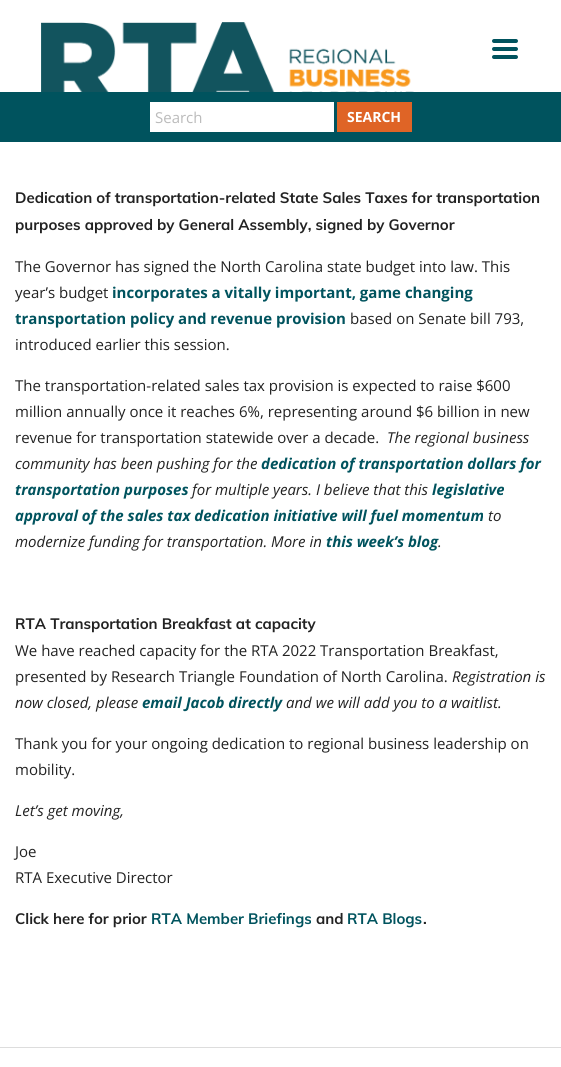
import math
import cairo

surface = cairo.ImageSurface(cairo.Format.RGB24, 561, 1067)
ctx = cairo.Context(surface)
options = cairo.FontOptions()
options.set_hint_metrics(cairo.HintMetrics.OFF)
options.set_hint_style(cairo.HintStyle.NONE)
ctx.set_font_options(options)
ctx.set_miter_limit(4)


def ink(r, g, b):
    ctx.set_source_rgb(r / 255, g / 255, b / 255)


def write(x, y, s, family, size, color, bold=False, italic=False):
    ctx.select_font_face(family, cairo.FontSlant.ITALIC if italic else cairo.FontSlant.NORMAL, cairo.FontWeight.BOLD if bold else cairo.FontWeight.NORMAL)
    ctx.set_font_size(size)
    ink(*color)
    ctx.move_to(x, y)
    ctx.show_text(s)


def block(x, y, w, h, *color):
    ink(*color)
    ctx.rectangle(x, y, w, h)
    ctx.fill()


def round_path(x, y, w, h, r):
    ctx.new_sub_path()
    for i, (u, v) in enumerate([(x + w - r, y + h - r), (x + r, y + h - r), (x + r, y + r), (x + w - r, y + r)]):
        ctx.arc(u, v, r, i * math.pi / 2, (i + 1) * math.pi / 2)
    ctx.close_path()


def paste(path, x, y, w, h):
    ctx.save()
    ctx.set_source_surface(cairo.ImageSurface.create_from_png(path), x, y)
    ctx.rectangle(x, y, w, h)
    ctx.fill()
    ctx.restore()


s1 = dict(family="Open Sans", size=15, color=(187, 187, 187))
s2 = dict(family="Open Sans", size=14, color=(255, 255, 255), bold=True)
s3 = dict(family="Muli", size=15, color=(34, 34, 34), bold=True)
s4 = dict(family="Open Sans", size=15, color=(34, 34, 34))
s5 = dict(family="Open Sans", size=15, color=(0, 83, 94), bold=True)
s6 = dict(family="Open Sans", size=15, color=(34, 34, 34), italic=True)
s7 = dict(family="Open Sans", size=15, color=(0, 83, 94), bold=True, italic=True)
s8 = dict(family="Muli", size=15, color=(0, 83, 94), bold=True)

ink(255, 255, 255)
ctx.paint()
paste("pic1.png", 41, 22, 373, 70)
ink(0, 83, 94)
round_path(492, 47, 26, 4, 2)
ctx.fill()
round_path(492, 39, 26, 4, 2)
ctx.fill()
round_path(492, 55, 26, 4, 2)
ctx.fill()
block(0, 92, 561, 50, 0, 83, 94)
block(150, 102, 184, 30, 255, 255, 255)
write(155, 123, "Search", **s1)
block(337, 102, 75, 30, 223, 100, 38)
write(347, 122, "SEARCH", **s2)
write(15, 203, "Dedication of transportation-related State Sales Taxes for transportation", **s3)
write(15, 230, "purposes approved by General Assembly, signed by Governor", **s3)
write(15, 272, "The Governor has signed the North Carolina state budget into law. This", **s4)
write(15, 298, "year’s budget", **s4)
write(112, 298, "incorporates a vitally important, game changing", **s5)
write(15, 324, "transportation policy and revenue provision", **s5)
write(350, 324, "based on Senate bill 793,", **s4)
write(15, 350, "introduced earlier this session.", **s4)
write(15, 391, "The transportation-related sales tax provision is expected to raise $600", **s4)
write(15, 417, "million annually once it reaches 6%, representing around $6 billion in new", **s4)
write(15, 443, "revenue for transportation statewide over a decade.", **s4)
write(387, 443, "The regional business", **s6)
write(15, 469, "community has been pushing for the", **s6)
write(261, 469, "dedication of transportation dollars for", **s7)
write(15, 495, "transportation purposes", **s7)
write(192, 495, "for multiple years. I believe that this", **s6)
write(432, 495, "legislative", **s7)
write(15, 521, "approval of the sales tax dedication initiative will fuel momentum", **s7)
write(488, 521, "to", **s6)
write(15, 547, "modernize funding for transportation. More in", **s6)
write(326, 547, "this week’s blog", **s7)
write(438, 547, ".", **s6)
write(15, 629, "RTA Transportation Breakfast at capacity", **s3)
write(15, 656, "We have reached capacity for the RTA 2022 Transportation Breakfast,", **s4)
write(15, 682, "presented by Research Triangle Foundation of North Carolina.", **s4)
write(452, 682, "Registration is", **s6)
write(15, 708, "now closed, please", **s6)
write(142, 708, "email Jacob directly", **s7)
write(286, 708, "and we will add you to a waitlist.", **s6)
write(15, 749, "Thank you for your ongoing dedication to regional business leadership on", **s4)
write(15, 775, "mobility.", **s4)
write(15, 816, "Let’s get moving,", **s6)
write(15, 857, "Joe", **s4)
write(15, 883, "RTA Executive Director", **s4)
write(15, 924, "Click here for prior", **s3)
write(151, 924, "RTA Member Briefings", **s8)
write(316, 924, "and", **s3)
write(347, 924, "RTA Blogs", **s8)
write(423, 924, ".", **s3)
block(0, 1047, 561, 1, 221, 221, 221)
surface.write_to_png("screenshot.png")
